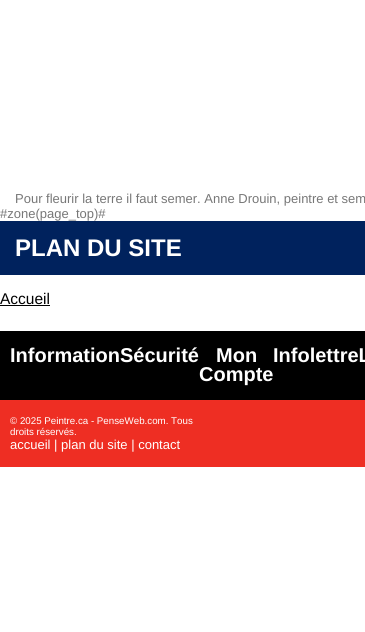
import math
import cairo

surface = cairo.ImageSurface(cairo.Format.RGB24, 365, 632)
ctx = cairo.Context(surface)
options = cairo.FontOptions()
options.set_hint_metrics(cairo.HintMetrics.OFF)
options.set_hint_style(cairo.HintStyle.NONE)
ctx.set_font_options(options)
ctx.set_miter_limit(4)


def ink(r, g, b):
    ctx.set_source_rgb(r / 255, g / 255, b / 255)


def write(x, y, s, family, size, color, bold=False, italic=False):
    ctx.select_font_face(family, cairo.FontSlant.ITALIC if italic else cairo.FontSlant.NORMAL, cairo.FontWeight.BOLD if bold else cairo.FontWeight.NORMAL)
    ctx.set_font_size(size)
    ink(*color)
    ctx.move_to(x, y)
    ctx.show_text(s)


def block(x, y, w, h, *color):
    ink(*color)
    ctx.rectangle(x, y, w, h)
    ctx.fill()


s1 = dict(family="Liberation Sans", size=13, color=(119, 119, 119))
s2 = dict(family="Liberation Sans", size=24, color=(255, 255, 255), bold=True)
s3 = dict(family="Liberation Sans", size=15.5, color=(0, 0, 0))
s4 = dict(family="Liberation Sans", size=20, color=(255, 255, 255), bold=True)
s5 = dict(family="Liberation Sans", size=9.75, color=(255, 255, 255))
s6 = dict(family="Liberation Sans", size=13, color=(255, 255, 255))

ink(255, 255, 255)
ctx.paint()
write(15, 203, "Pour fleurir la terre il faut semer. Anne Drouin, peintre et sem", **s1)
write(0, 218, "#zone(page_top)#", **s1)
block(0, 221, 365, 54, 0, 34, 93)
write(15, 256, "PLAN DU SITE", **s2)
write(0, 304, "Accueil", **s3)
block(0, 305, 50, 1, 0, 0, 0)
block(0, 331, 365, 69, 0, 0, 0)
write(10, 362, "InformationSécurité", **s4)
write(216, 362, "Mon", **s4)
write(199, 381, "Compte", **s4)
write(273, 362, "InfolettreL", **s4)
block(0, 400, 365, 67, 238, 46, 35)
write(10, 424, "© 2025 Peintre.ca - PenseWeb.com. Tous", **s5)
write(10, 435, "droits réservés.", **s5)
write(10, 449, "accueil | plan du site | contact", **s6)
surface.write_to_png("screenshot.png")
